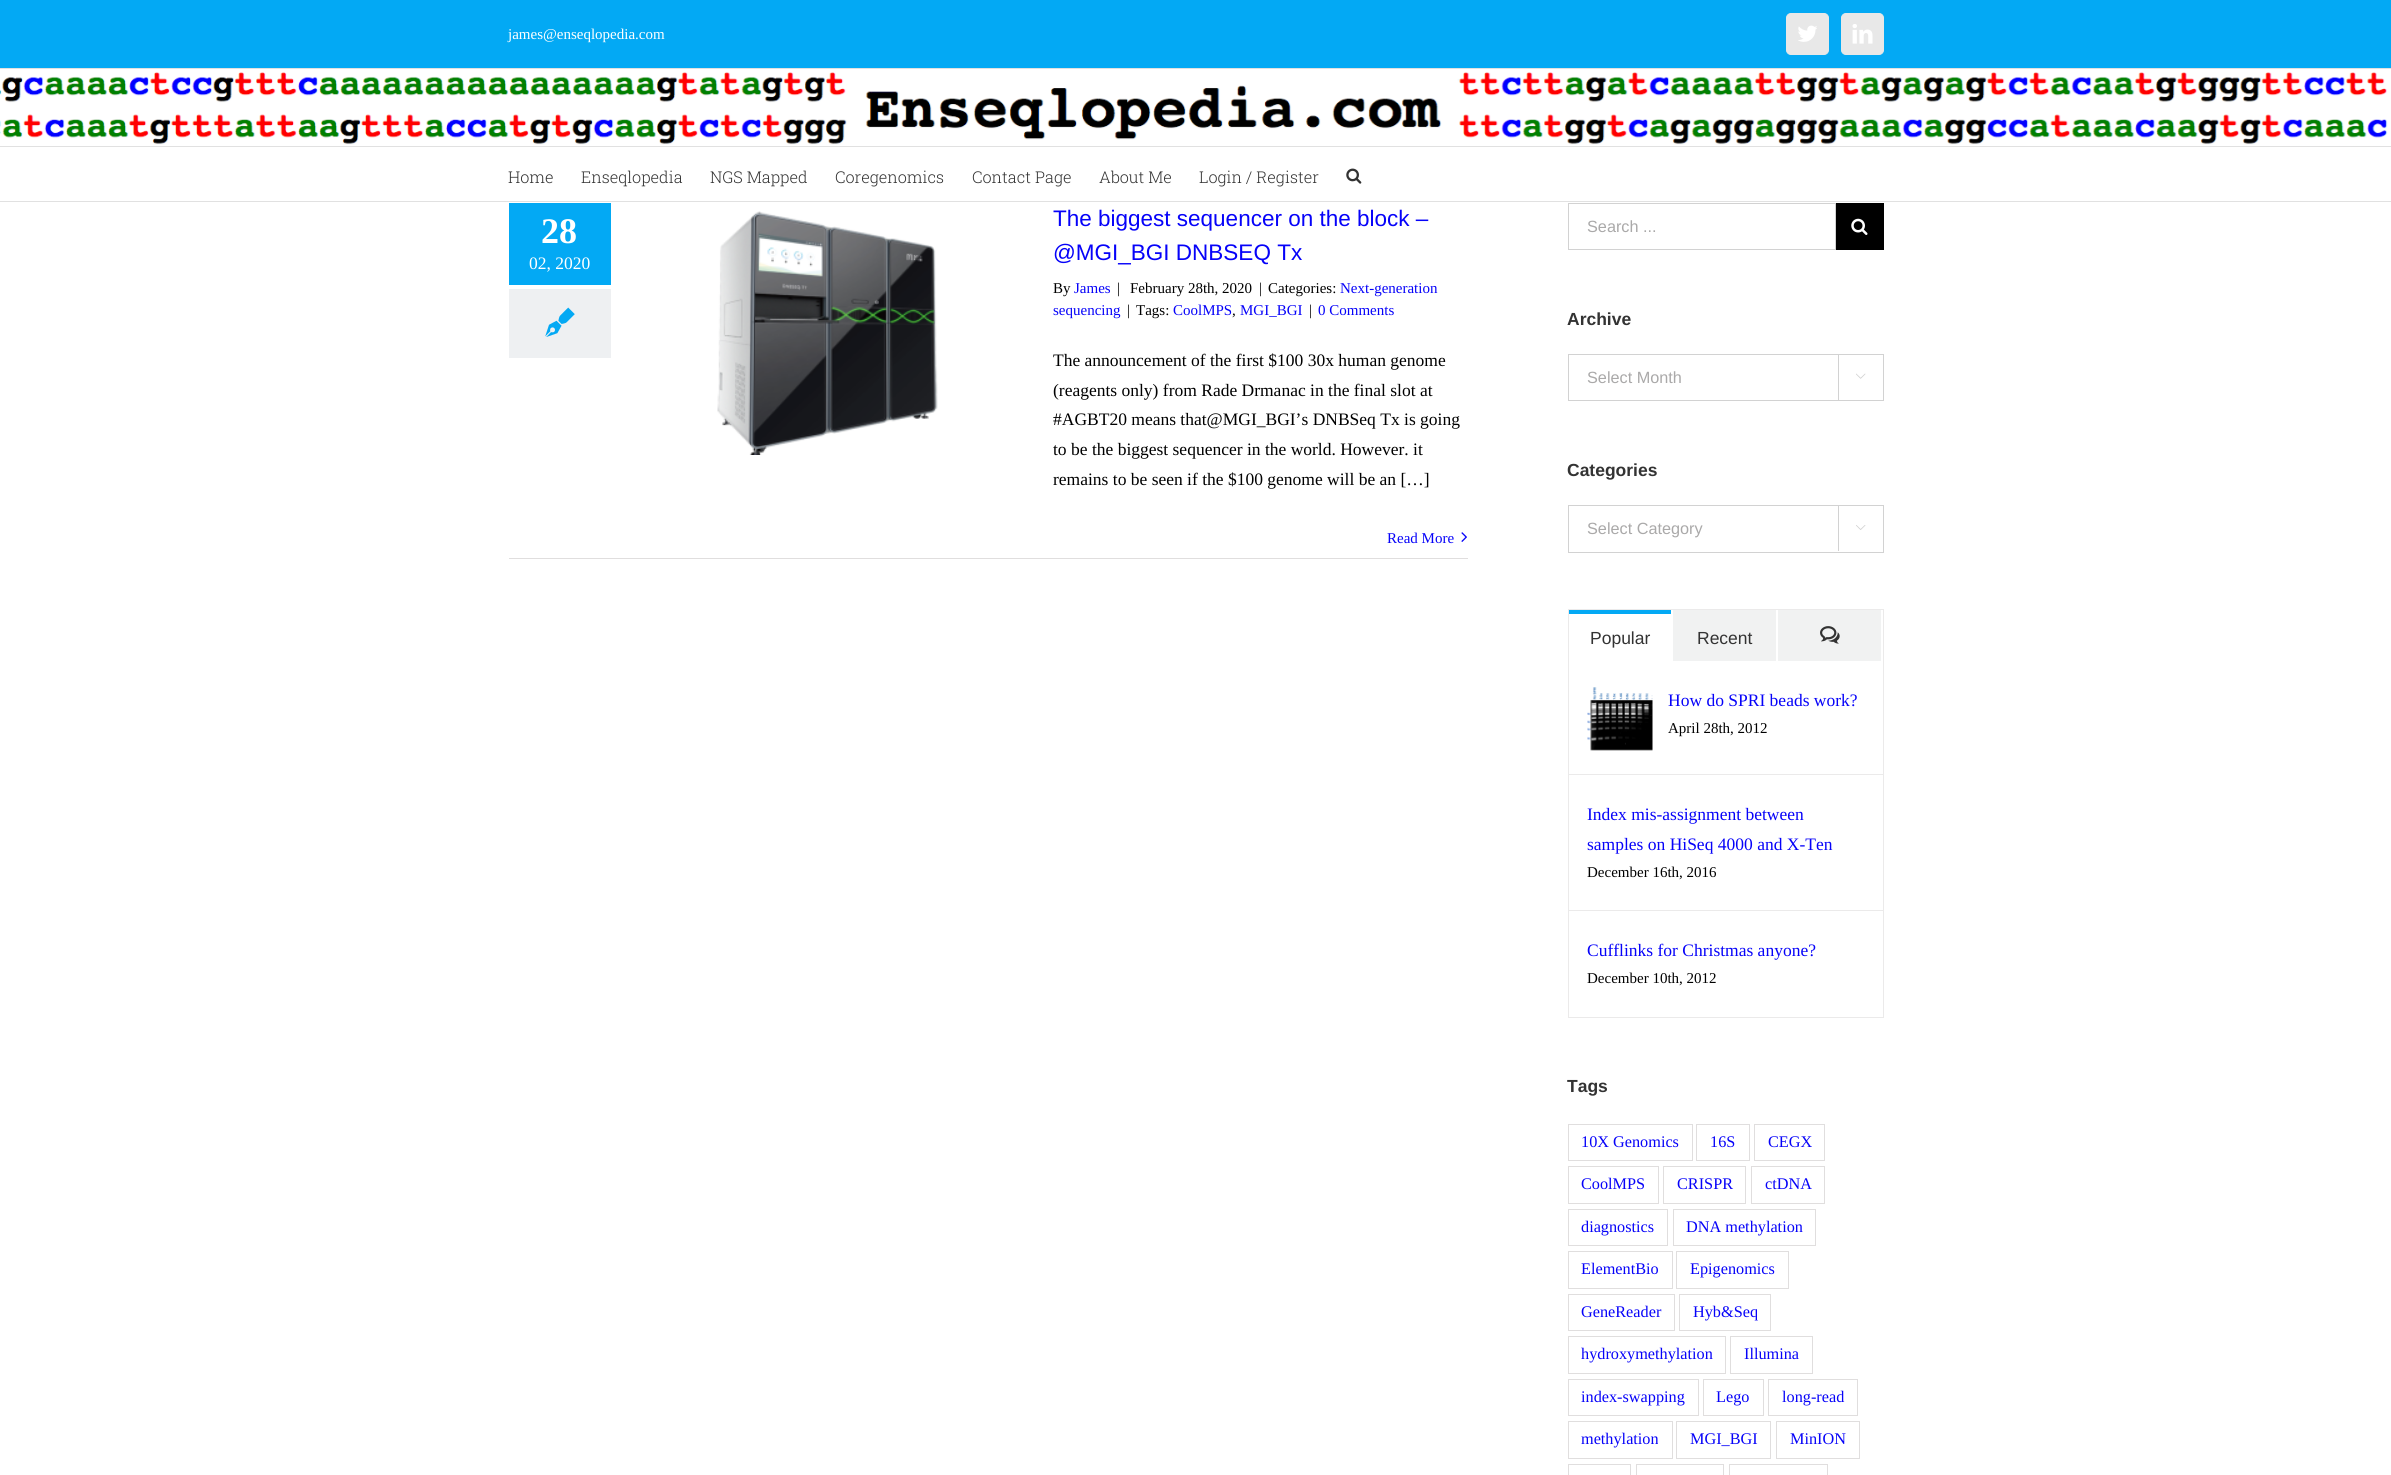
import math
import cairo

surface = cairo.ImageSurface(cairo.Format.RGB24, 2391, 1475)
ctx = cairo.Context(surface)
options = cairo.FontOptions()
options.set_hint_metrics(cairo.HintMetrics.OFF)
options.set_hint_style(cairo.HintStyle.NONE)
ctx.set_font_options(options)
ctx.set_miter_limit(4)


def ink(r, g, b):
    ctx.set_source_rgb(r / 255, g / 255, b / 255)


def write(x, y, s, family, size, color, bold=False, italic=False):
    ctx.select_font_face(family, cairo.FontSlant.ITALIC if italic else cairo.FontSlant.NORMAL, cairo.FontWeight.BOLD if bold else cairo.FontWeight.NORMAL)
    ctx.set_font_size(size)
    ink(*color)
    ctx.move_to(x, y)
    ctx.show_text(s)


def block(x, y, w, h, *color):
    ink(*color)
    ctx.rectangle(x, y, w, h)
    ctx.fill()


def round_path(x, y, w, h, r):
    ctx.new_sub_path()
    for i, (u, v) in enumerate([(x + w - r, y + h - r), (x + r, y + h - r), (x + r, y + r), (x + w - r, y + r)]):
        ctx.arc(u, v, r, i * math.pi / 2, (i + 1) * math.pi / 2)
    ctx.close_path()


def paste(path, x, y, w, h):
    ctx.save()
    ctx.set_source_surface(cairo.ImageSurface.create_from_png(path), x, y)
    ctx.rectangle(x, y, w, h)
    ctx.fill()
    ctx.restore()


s1 = dict(family="Liberation Serif", size=15, color=(255, 255, 255))
s2 = dict(family="Roboto Slab Light", size=16.25, color=(51, 51, 51))
s3 = dict(family="Liberation Serif", size=36, color=(255, 255, 255), bold=True)
s4 = dict(family="Liberation Serif", size=17.5, color=(255, 255, 255))
s5 = dict(family="Liberation Sans", size=22.5, color=(6, 2, 249))
s6 = dict(family="Liberation Serif", size=15, color=(0, 0, 0))
s7 = dict(family="Liberation Serif", size=15, color=(6, 2, 249))
s8 = dict(family="Liberation Serif", size=17.5, color=(0, 0, 0))
s9 = dict(family="Liberation Sans", size=16.25, color=(170, 169, 169))
s10 = dict(family="Liberation Sans", size=17.5, color=(51, 51, 51), bold=True)
s11 = dict(family="Liberation Sans", size=17.5, color=(51, 51, 51))
s12 = dict(family="Liberation Serif", size=17.5, color=(6, 2, 249))
s13 = dict(family="Liberation Serif", size=16.25, color=(6, 2, 249))

ink(255, 255, 255)
ctx.paint()
block(0, 0, 2391, 68, 3, 169, 244)
block(0, 68, 2391, 1, 225, 225, 225)
write(508, 39, "james@enseqlopedia.com", **s1)
ink(232, 232, 232)
round_path(1786.5, 13.5, 42, 41, 4.5)
ctx.fill_preserve()
ctx.set_line_width(1)
ctx.stroke()
paste("pic1.png", 1798, 25, 19, 17)
round_path(1841.5, 13.5, 42, 41, 4.5)
ctx.fill_preserve()
ctx.stroke()
paste("pic2.png", 1852, 24, 21, 20)
paste("pic3.png", 0, 72, 2388, 73)
block(0, 146, 2391, 1, 225, 225, 225)
block(0, 201, 2391, 1, 225, 225, 225)
write(508, 183, "Home", **s2)
write(581, 183, "Enseqlopedia", **s2)
write(710, 183, "NGS Mapped", **s2)
write(835, 183, "Coregenomics", **s2)
write(972, 183, "Contact Page", **s2)
write(1099, 183, "About Me", **s2)
write(1199, 183, "Login / Register", **s2)
paste("pic4.png", 1346, 168, 16, 16)
block(509, 203, 102, 82, 3, 169, 244)
write(541, 243, "28", **s3)
write(529, 269, "02, 2020", **s4)
block(509, 289, 102, 69, 238, 240, 242)
paste("pic5.png", 545, 307, 30, 30)
paste("pic6.png", 717, 211, 221, 244)
write(1053, 226, "The biggest sequencer on the block –", **s5)
write(1053, 260, "@MGI_BGI DNBSEQ Tx", **s5)
write(1053, 293, "By", **s6)
write(1074, 293, "James", **s7)
write(1117, 293, "|", **s6)
write(1130, 293, "February 28th, 2020", **s6)
write(1259, 293, "|", **s6)
write(1268, 293, "Categories:", **s6)
write(1340, 293, "Next-generation", **s7)
write(1053, 315, "sequencing", **s7)
write(1127, 315, "|", **s6)
write(1136, 315, "Tags:", **s6)
write(1173, 315, "CoolMPS", **s7)
write(1232, 315, ",", **s6)
write(1240, 315, "MGI_BGI", **s7)
write(1309, 315, "|", **s6)
write(1318, 315, "0 Comments", **s7)
write(1053, 366, "The announcement of the first $100 30x human genome", **s8)
write(1053, 396, "(reagents only) from Rade Drmanac in the final slot at", **s8)
write(1053, 425, "#AGBT20 means that@MGI_BGI’s DNBSeq Tx is going", **s8)
write(1053, 455, "to be the biggest sequencer in the world. However. it", **s8)
write(1053, 485, "remains to be seen if the $100 genome will be an […]", **s8)
block(509, 558, 959, 1, 224, 222, 222)
write(1387, 543, "Read More", **s7)
paste("pic7.png", 1461, 532, 6, 10)
ctx.rectangle(1568.5, 203.5, 267, 46)
ink(210, 210, 210)
ctx.stroke()
write(1587, 232, "Search ...", **s9)
block(1836, 203, 48, 47, 0, 0, 0)
paste("pic8.png", 1851, 218, 17, 17)
write(1567, 325, "Archive", **s10)
ctx.rectangle(1568.5, 354.5, 315, 46)
ink(210, 210, 210)
ctx.stroke()
write(1587, 383, "Select Month", **s9)
block(1838, 355, 1, 45, 210, 210, 210)
paste("pic9.png", 1856, 373, 10, 6)
write(1567, 476, "Categories", **s10)
ctx.rectangle(1568.5, 505.5, 315, 47)
ink(210, 210, 210)
ctx.stroke()
write(1587, 534, "Select Category", **s9)
block(1838, 506, 1, 45, 210, 210, 210)
paste("pic10.png", 1856, 525, 10, 5)
ctx.rectangle(1568.5, 609.5, 315, 408)
ink(235, 234, 234)
ctx.stroke()
block(1569, 610, 102, 4, 3, 169, 244)
write(1590, 644, "Popular", **s11)
block(1673, 610, 103, 51, 241, 242, 242)
write(1697, 644, "Recent", **s11)
block(1778, 610, 103, 51, 241, 242, 242)
paste("pic11.png", 1820, 626, 20, 18)
block(1569, 774, 314, 1, 235, 234, 234)
paste("pic12.png", 1587, 687, 66, 64)
write(1668, 706, "How do SPRI beads work?", **s12)
write(1668, 733, "April 28th, 2012", **s6)
block(1569, 910, 314, 1, 235, 234, 234)
write(1587, 820, "Index mis-assignment between", **s12)
write(1587, 850, "samples on HiSeq 4000 and X-Ten", **s12)
write(1587, 877, "December 16th, 2016", **s6)
write(1587, 956, "Cufflinks for Christmas anyone?", **s12)
write(1587, 983, "December 10th, 2012", **s6)
write(1567, 1092, "Tags", **s10)
ctx.rectangle(1568.5, 1124.5, 124, 36)
ink(224, 222, 222)
ctx.stroke()
write(1581, 1147, "10X Genomics", **s13)
ctx.rectangle(1696.5, 1124.5, 53, 36)
ink(224, 222, 222)
ctx.stroke()
write(1710, 1147, "16S", **s13)
ctx.rectangle(1754.5, 1124.5, 70, 36)
ink(224, 222, 222)
ctx.stroke()
write(1768, 1147, "CEGX", **s13)
ctx.rectangle(1568.5, 1166.5, 90, 37)
ink(224, 222, 222)
ctx.stroke()
write(1581, 1189, "CoolMPS", **s13)
ctx.rectangle(1663.5, 1166.5, 82, 37)
ink(224, 222, 222)
ctx.stroke()
write(1677, 1189, "CRISPR", **s13)
ctx.rectangle(1751.5, 1166.5, 73, 37)
ink(224, 222, 222)
ctx.stroke()
write(1765, 1189, "ctDNA", **s13)
ctx.rectangle(1568.5, 1209.5, 99, 36)
ink(224, 222, 222)
ctx.stroke()
write(1581, 1232, "diagnostics", **s13)
ctx.rectangle(1673.5, 1209.5, 142, 36)
ink(224, 222, 222)
ctx.stroke()
write(1686, 1232, "DNA methylation", **s13)
ctx.rectangle(1568.5, 1251.5, 104, 37)
ink(224, 222, 222)
ctx.stroke()
write(1581, 1274, "ElementBio", **s13)
ctx.rectangle(1676.5, 1251.5, 112, 37)
ink(224, 222, 222)
ctx.stroke()
write(1690, 1274, "Epigenomics", **s13)
ctx.rectangle(1568.5, 1294.5, 106, 36)
ink(224, 222, 222)
ctx.stroke()
write(1581, 1317, "GeneReader", **s13)
ctx.rectangle(1679.5, 1294.5, 91, 36)
ink(224, 222, 222)
ctx.stroke()
write(1693, 1317, "Hyb&Seq", **s13)
ctx.rectangle(1568.5, 1336.5, 157, 37)
ink(224, 222, 222)
ctx.stroke()
write(1581, 1359, "hydroxymethylation", **s13)
ctx.rectangle(1730.5, 1336.5, 82, 37)
ink(224, 222, 222)
ctx.stroke()
write(1744, 1359, "Illumina", **s13)
ctx.rectangle(1568.5, 1379.5, 130, 36)
ink(224, 222, 222)
ctx.stroke()
write(1581, 1402, "index-swapping", **s13)
ctx.rectangle(1703.5, 1379.5, 60, 36)
ink(224, 222, 222)
ctx.stroke()
write(1716, 1402, "Lego", **s13)
ctx.rectangle(1768.5, 1379.5, 89, 36)
ink(224, 222, 222)
ctx.stroke()
write(1782, 1402, "long-read", **s13)
ctx.rectangle(1568.5, 1421.5, 104, 37)
ink(224, 222, 222)
ctx.stroke()
write(1581, 1444, "methylation", **s13)
ctx.rectangle(1676.5, 1421.5, 94, 37)
ink(224, 222, 222)
ctx.stroke()
write(1690, 1444, "MGI_BGI", **s13)
ctx.rectangle(1776.5, 1421.5, 83, 37)
ink(224, 222, 222)
ctx.stroke()
write(1790, 1444, "MinION", **s13)
ctx.rectangle(1568.5, 1464.5, 62, 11)
ink(224, 222, 222)
ctx.stroke()
ctx.rectangle(1636.5, 1464.5, 87, 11)
ctx.stroke()
ctx.rectangle(1729.5, 1464.5, 98, 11)
ctx.stroke()
surface.write_to_png("screenshot.png")
